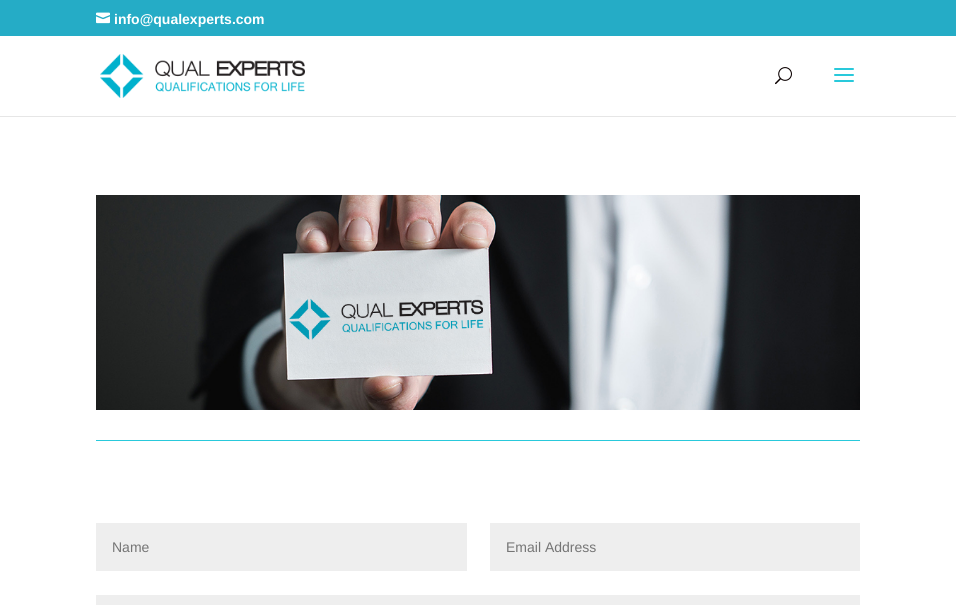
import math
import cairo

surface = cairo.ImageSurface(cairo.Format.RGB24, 956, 605)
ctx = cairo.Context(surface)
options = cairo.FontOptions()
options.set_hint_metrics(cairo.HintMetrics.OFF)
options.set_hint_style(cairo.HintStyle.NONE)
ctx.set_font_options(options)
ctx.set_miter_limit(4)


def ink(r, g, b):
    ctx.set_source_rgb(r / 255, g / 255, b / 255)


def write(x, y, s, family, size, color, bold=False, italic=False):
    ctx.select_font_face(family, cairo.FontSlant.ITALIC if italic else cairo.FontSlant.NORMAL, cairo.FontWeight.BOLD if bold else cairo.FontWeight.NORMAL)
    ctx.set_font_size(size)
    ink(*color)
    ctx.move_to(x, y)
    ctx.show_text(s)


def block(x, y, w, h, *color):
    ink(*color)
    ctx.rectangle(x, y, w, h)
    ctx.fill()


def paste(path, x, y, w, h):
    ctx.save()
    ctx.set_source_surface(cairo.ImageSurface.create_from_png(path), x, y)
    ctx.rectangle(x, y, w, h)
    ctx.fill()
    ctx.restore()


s1 = dict(family="Liberation Sans", size=14, color=(255, 255, 255), bold=True)
s2 = dict(family="Liberation Sans", size=14, color=(117, 117, 117))

ink(255, 255, 255)
ctx.paint()
block(0, 0, 956, 36, 37, 172, 198)
paste("pic1.png", 96, 12, 14, 12)
write(114, 24, "info@qualexperts.com", **s1)
block(0, 116, 956, 1, 230, 230, 230)
paste("pic2.png", 100, 54, 205, 44)
paste("pic3.png", 775, 67, 17, 18)
paste("pic4.png", 834, 68, 20, 14)
paste("pic5.png", 96, 195, 764, 215)
block(96, 440, 764, 1, 41, 201, 219)
block(96, 523, 371, 48, 238, 238, 238)
write(112, 552, "Name", **s2)
block(490, 523, 370, 48, 238, 238, 238)
write(506, 552, "Email Address", **s2)
block(96, 595, 764, 10, 238, 238, 238)
surface.write_to_png("screenshot.png")
